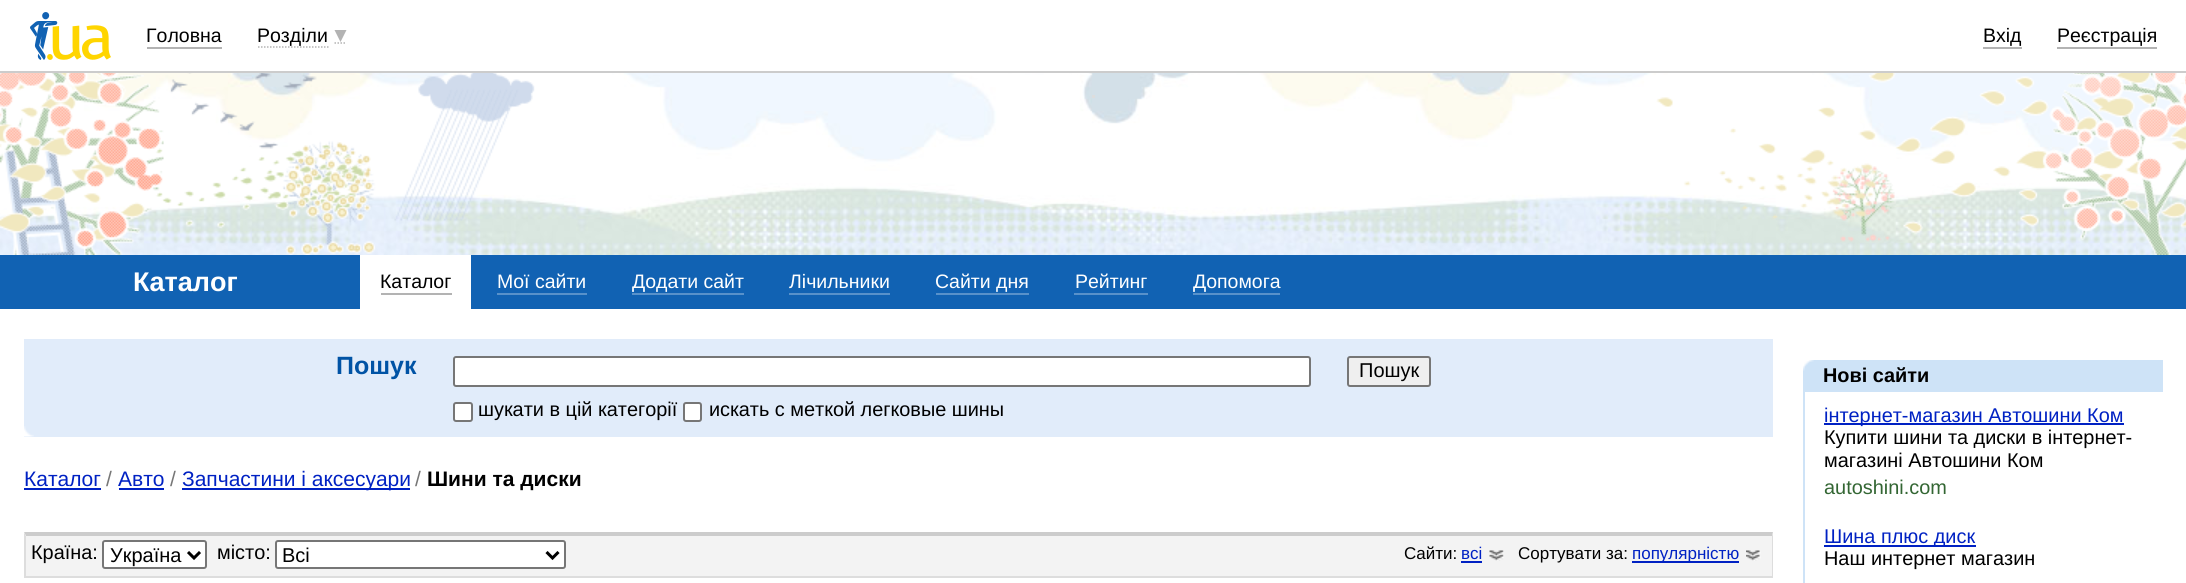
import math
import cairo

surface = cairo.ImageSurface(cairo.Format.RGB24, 2186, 583)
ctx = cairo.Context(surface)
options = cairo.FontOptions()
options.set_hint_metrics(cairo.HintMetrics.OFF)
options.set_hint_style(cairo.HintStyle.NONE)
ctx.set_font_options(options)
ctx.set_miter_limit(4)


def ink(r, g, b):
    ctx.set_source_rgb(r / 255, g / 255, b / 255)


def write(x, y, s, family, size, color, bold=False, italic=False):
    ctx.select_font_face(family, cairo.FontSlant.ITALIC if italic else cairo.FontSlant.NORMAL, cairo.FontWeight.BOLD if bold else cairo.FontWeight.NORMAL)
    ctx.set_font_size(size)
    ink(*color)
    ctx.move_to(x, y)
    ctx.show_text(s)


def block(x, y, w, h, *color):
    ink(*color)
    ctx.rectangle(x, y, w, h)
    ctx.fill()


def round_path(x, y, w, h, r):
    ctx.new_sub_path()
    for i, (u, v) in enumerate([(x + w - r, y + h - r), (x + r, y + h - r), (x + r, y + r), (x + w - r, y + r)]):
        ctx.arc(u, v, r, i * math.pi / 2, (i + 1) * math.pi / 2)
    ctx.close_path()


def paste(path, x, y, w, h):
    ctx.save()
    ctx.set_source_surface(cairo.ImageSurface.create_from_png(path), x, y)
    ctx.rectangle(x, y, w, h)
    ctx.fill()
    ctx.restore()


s1 = dict(family="Liberation Sans", size=19.5, color=(0, 0, 0))
s2 = dict(family="Liberation Sans", size=27, color=(255, 255, 255), bold=True)
s3 = dict(family="Liberation Sans", size=19.5, color=(255, 255, 255))
s4 = dict(family="Liberation Sans", size=25, color=(0, 83, 165), bold=True)
s5 = dict(family="Liberation Sans", size=20, color=(0, 0, 0))
s6 = dict(family="Liberation Sans", size=19.9, color=(0, 0, 0))
s7 = dict(family="Liberation Sans", size=21, color=(0, 33, 195))
s8 = dict(family="Liberation Sans", size=21, color=(119, 119, 119))
s9 = dict(family="Liberation Sans", size=21, color=(0, 0, 0), bold=True)
s10 = dict(family="Liberation Sans", size=17, color=(0, 0, 0))
s11 = dict(family="Liberation Sans", size=17, color=(0, 33, 195))
s12 = dict(family="Liberation Sans", size=19.9, color=(0, 0, 0), bold=True)
s13 = dict(family="Liberation Sans", size=19.9, color=(0, 33, 195))
s14 = dict(family="Liberation Sans", size=19.9, color=(51, 102, 51))

ink(255, 255, 255)
ctx.paint()
block(0, 71, 2186, 2, 204, 204, 204)
paste("pic1.png", 30, 12, 81, 48)
write(146, 42, "Головна", **s1)
block(147, 47, 75, 2, 179, 179, 179)
ctx.new_path()
ctx.move_to(258, 47)
ctx.line_to(328.5, 47)
ctx.set_line_width(1.5)
ctx.set_dash([1.5, 1.5])
ctx.stroke()
ctx.new_path()
ctx.move_to(334.5, 43)
ctx.line_to(346.5, 43)
ctx.stroke()
write(257, 42, "Розділи", **s1)
ink(179, 179, 179)
ctx.new_path()
ctx.move_to(334.5, 30)
ctx.line_to(346.5, 30)
ctx.line_to(340.5, 42)
ctx.close_path()
ctx.fill()
write(1983, 42, "Вхід", **s1)
block(1983, 47, 39, 2, 179, 179, 179)
write(2057, 42, "Реєстрація", **s1)
block(2057, 47, 100, 2, 179, 179, 179)
paste("pic2.png", 0, 73, 2186, 182)
block(1092, 95, 3, 3, 221, 221, 221)
block(0, 255, 2186, 54, 17, 98, 179)
write(133, 291, "Каталог", **s2)
block(360, 255, 111, 54, 255, 255, 255)
write(380, 288, "Каталог", **s1)
block(381, 293, 71, 2, 179, 179, 179)
write(497, 288, "Мої сайти", **s3)
block(497, 293, 90, 2, 88, 145, 202)
write(632, 288, "Додати сайт", **s3)
block(632, 293, 112, 2, 88, 145, 202)
write(789, 288, "Лічильники", **s3)
block(789, 293, 101, 2, 88, 145, 202)
write(935, 288, "Сайти дня", **s3)
block(936, 293, 93, 2, 88, 145, 202)
write(1075, 288, "Рейтинг", **s3)
block(1074, 293, 74, 2, 88, 145, 202)
write(1193, 288, "Допомога", **s3)
block(1193, 293, 87, 2, 88, 145, 202)
block(24, 339, 1749, 98, 225, 236, 250)
paste("pic3.png", 24, 426, 10, 11)
write(336, 374, "Пошук", **s4)
ink(239, 239, 239)
round_path(1348, 357, 82, 29, 2)
ctx.fill_preserve()
ink(118, 118, 118)
ctx.set_line_width(2)
ctx.set_dash([])
ctx.stroke()
write(1359, 377, "Пошук", **s5)
ink(255, 255, 255)
round_path(454, 357, 856, 29, 2)
ctx.fill_preserve()
ink(118, 118, 118)
ctx.stroke()
ink(255, 255, 255)
round_path(454, 403, 18, 18, 2)
ctx.fill_preserve()
ink(118, 118, 118)
ctx.stroke()
write(478, 416, "шукати в цій категорії", **s6)
ink(255, 255, 255)
round_path(684, 403, 17, 18, 2)
ctx.fill_preserve()
ink(118, 118, 118)
ctx.stroke()
write(709, 416, "искать c меткой легковые шины", **s6)
write(24, 486, "Каталог", **s7)
block(24, 488, 77, 2, 0, 33, 195)
write(106, 486, "/", **s8)
write(118, 486, "Авто", **s7)
block(119, 488, 45, 2, 0, 33, 195)
write(170, 486, "/", **s8)
block(182, 488, 228, 2, 0, 33, 195)
write(182, 486, "Запчастини і аксесуари", **s7)
write(415, 486, "/", **s8)
write(427, 486, "Шини та диски", **s9)
block(26, 536, 1746, 40, 243, 243, 243)
ink(204, 204, 204)
ctx.new_path()
ctx.move_to(24, 532)
ctx.line_to(1773, 532)
ctx.line_to(1772, 536)
ctx.line_to(26, 536)
ctx.close_path()
ctx.fill()
ink(221, 221, 221)
ctx.new_path()
ctx.move_to(1773, 532)
ctx.line_to(1773, 578)
ctx.line_to(1772, 576)
ctx.line_to(1772, 536)
ctx.close_path()
ctx.fill()
block(24, 576, 1749, 2, 221, 221, 221)
ctx.new_path()
ctx.move_to(24, 578)
ctx.line_to(24, 532)
ctx.line_to(26, 536)
ctx.line_to(26, 576)
ctx.close_path()
ctx.fill()
write(31, 559, "Країна:", **s6)
ink(255, 255, 255)
round_path(103, 541, 103, 27, 2)
ctx.fill_preserve()
ink(118, 118, 118)
ctx.stroke()
ctx.new_path()
ctx.move_to(188, 552)
ctx.line_to(194, 558)
ctx.line_to(200, 552)
ink(0, 0, 0)
ctx.set_line_width(3)
ctx.stroke()
write(110, 562, "Україна", **s5)
write(217, 559, "місто:", **s6)
ink(255, 255, 255)
round_path(276, 541, 289, 27, 2)
ctx.fill_preserve()
ink(118, 118, 118)
ctx.set_line_width(2)
ctx.stroke()
ctx.new_path()
ctx.move_to(546.5, 552)
ctx.line_to(552.5, 558)
ctx.line_to(558.5, 552)
ink(0, 0, 0)
ctx.set_line_width(3)
ctx.stroke()
write(282, 562, "Всі", **s5)
paste("pic4.png", 1489, 550, 15, 11)
write(1404, 559, "Сайти:", **s10)
write(1461, 559, "всі", **s11)
block(1461, 561, 21, 2, 0, 33, 195)
paste("pic5.png", 1746, 550, 15, 11)
write(1518, 559, "Сортувати за:", **s10)
block(1632, 561, 107, 2, 0, 33, 195)
write(1632, 559, "популярністю", **s11)
block(1803, 360, 360, 32, 206, 227, 247)
paste("pic6.png", 1803, 360, 11, 11)
write(1823, 382, "Нові сайти", **s12)
block(1803, 392, 2, 191, 206, 227, 247)
block(1824, 423, 300, 2, 0, 33, 195)
write(1824, 422, "інтернет-магазин Автошини Ком", **s13)
write(1824, 444, "Купити шини та диски в інтернет-", **s6)
write(1824, 467, "магазині Автошини Ком", **s6)
write(1824, 494, "autoshini.com", **s14)
block(1824, 545, 152, 2, 0, 33, 195)
write(1824, 543, "Шина плюс диск", **s13)
write(1824, 565, "Наш интернет магазин", **s6)
surface.write_to_png("screenshot.png")
